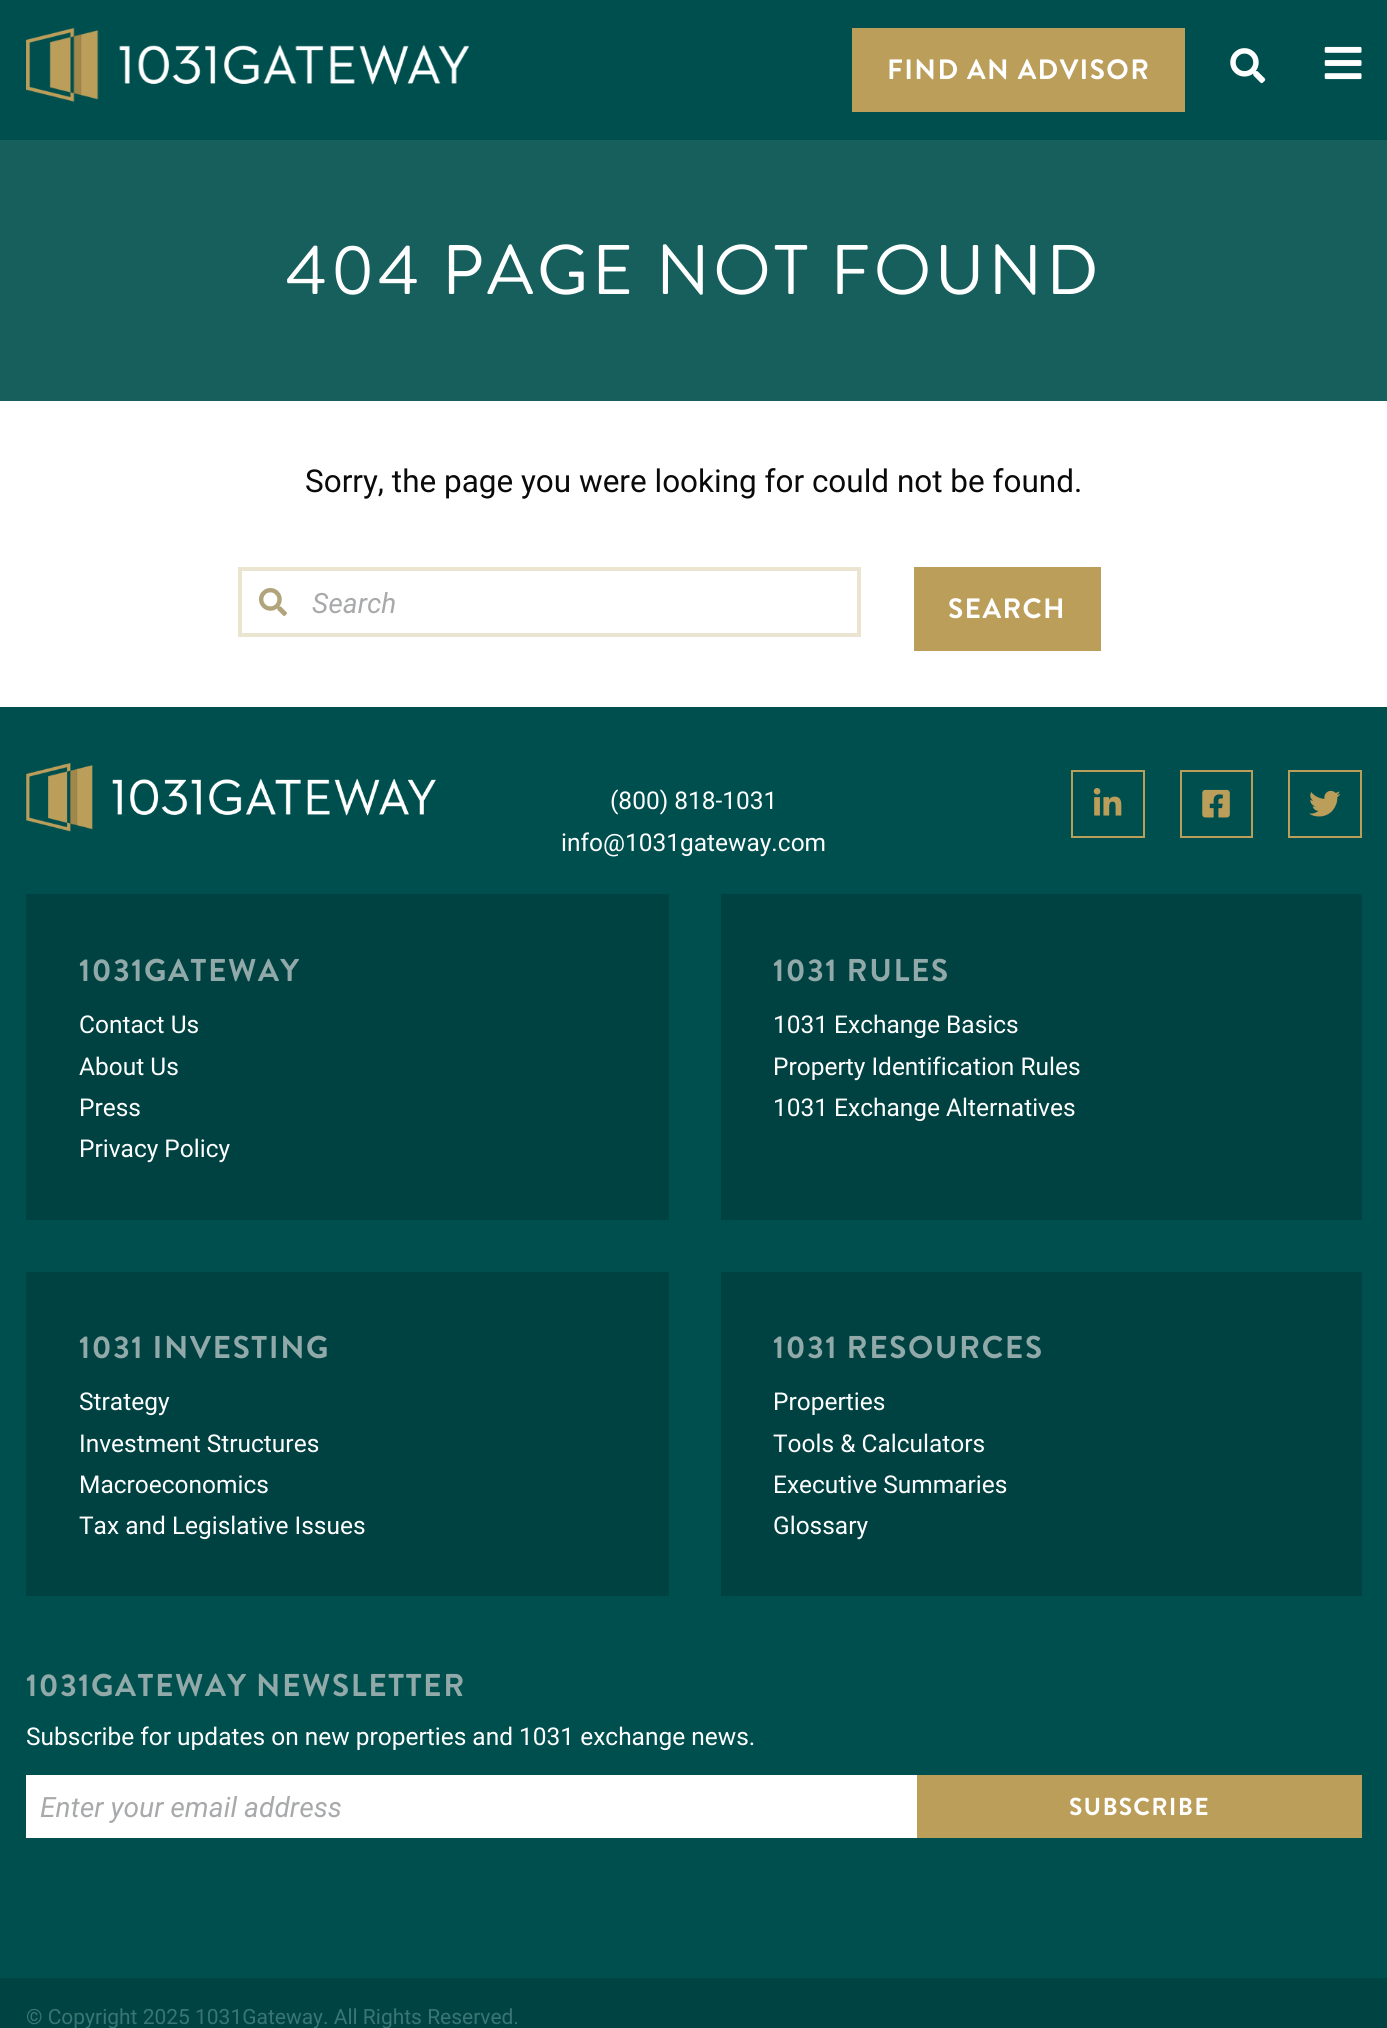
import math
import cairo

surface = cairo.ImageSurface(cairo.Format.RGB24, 1387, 2028)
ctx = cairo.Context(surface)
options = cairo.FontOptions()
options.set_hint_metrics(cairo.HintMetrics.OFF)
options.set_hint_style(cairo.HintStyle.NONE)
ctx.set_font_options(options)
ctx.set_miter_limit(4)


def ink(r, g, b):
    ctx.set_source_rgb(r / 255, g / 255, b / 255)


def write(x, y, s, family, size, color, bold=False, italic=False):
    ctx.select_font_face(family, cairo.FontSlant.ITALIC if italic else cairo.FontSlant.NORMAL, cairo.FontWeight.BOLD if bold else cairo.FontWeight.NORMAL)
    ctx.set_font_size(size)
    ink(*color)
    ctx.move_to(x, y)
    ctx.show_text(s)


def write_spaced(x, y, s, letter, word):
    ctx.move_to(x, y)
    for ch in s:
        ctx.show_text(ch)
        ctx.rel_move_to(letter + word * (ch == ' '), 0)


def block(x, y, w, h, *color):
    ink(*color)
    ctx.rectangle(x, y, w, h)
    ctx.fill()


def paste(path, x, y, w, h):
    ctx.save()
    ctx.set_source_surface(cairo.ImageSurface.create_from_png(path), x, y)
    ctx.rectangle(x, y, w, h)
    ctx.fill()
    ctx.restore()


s1 = dict(family="Roboto", size=31.5, color=(10, 10, 10))
s2 = dict(family="Roboto", size=28, color=(168, 169, 171), italic=True)
s3 = dict(family="Roboto", size=24.5, color=(255, 255, 255))
s4 = dict(family="Roboto", size=21, color=(56, 117, 115))

ink(255, 255, 255)
ctx.paint()
block(0, 0, 1387, 140, 0, 79, 79)
paste("pic1.png", 26, 28, 443, 74)
block(852, 28, 333, 84, 188, 158, 91)
ctx.select_font_face("Brandon Grotesque", cairo.FontSlant.NORMAL, cairo.FontWeight.BOLD)
ctx.set_font_size(28)
ink(255, 255, 255)
write_spaced(887, 79, "FIND AN ADVISOR", 1.4, 0)
paste("pic2.png", 1230, 48, 36, 36)
paste("pic3.png", 1324, 46, 38, 34)
block(0, 140, 1387, 261, 23, 95, 93)
ctx.select_font_face("Brandon Grotesque")
ctx.set_font_size(70)
ink(255, 255, 255)
write_spaced(286, 294, "404 PAGE NOT FOUND", 3.5, 0)
write(305, 492, "Sorry, the page you were looking for could not be found.", **s1)
ctx.rectangle(240, 569, 619, 66)
ink(235, 228, 209)
ctx.set_line_width(4)
ctx.stroke()
paste("pic4.png", 259, 588, 28, 28)
write(312, 613, "Search", **s2)
block(914, 567, 187, 84, 188, 158, 91)
ctx.select_font_face("Brandon Grotesque", cairo.FontSlant.NORMAL, cairo.FontWeight.BOLD)
ink(255, 255, 255)
write_spaced(948, 618, "SEARCH", 1.4, 0)
block(0, 707, 1387, 1271, 0, 79, 79)
paste("pic5.png", 26, 763, 410, 69)
write(610, 809, "(800) 818-1031", **s3)
write(561, 851, "info@1031gateway.com", **s3)
ctx.rectangle(1072, 771, 72, 66)
ink(188, 158, 91)
ctx.set_line_width(2)
ctx.stroke()
paste("pic6.png", 1093, 788, 29, 28)
ctx.rectangle(1181, 771, 71, 66)
ctx.stroke()
paste("pic7.png", 1202, 789, 28, 29)
ctx.rectangle(1289, 771, 72, 66)
ctx.stroke()
paste("pic8.png", 1309, 790, 32, 27)
block(26, 894, 643, 326, 0, 66, 66)
ctx.select_font_face("Brandon Grotesque", cairo.FontSlant.NORMAL, cairo.FontWeight.BOLD)
ctx.set_font_size(31.5)
ink(146, 169, 169)
write_spaced(79, 981, "1031GATEWAY", 1.6, 0)
write(79, 1033, "Contact Us", **s3)
write(79, 1075, "About Us", **s3)
write(79, 1116, "Press", **s3)
write(79, 1157, "Privacy Policy", **s3)
block(721, 894, 641, 326, 0, 66, 66)
ctx.select_font_face("Brandon Grotesque", cairo.FontSlant.NORMAL, cairo.FontWeight.BOLD)
ctx.set_font_size(31.5)
ink(146, 169, 169)
write_spaced(773, 981, "1031 RULES", 1.6, 0)
write(773, 1033, "1031 Exchange Basics", **s3)
write(773, 1075, "Property Identification Rules", **s3)
write(773, 1116, "1031 Exchange Alternatives", **s3)
block(26, 1272, 643, 324, 0, 66, 66)
ctx.select_font_face("Brandon Grotesque", cairo.FontSlant.NORMAL, cairo.FontWeight.BOLD)
ctx.set_font_size(31.5)
ink(146, 169, 169)
write_spaced(79, 1358, "1031 INVESTING", 1.6, 0)
write(79, 1410, "Strategy", **s3)
write(79, 1452, "Investment Structures", **s3)
write(79, 1493, "Macroeconomics", **s3)
write(79, 1534, "Tax and Legislative Issues", **s3)
block(721, 1272, 641, 324, 0, 66, 66)
ctx.select_font_face("Brandon Grotesque", cairo.FontSlant.NORMAL, cairo.FontWeight.BOLD)
ctx.set_font_size(31.5)
ink(146, 169, 169)
write_spaced(773, 1358, "1031 RESOURCES", 1.6, 0)
write(773, 1410, "Properties", **s3)
write(773, 1452, "Tools & Calculators", **s3)
write(773, 1493, "Executive Summaries", **s3)
write(773, 1534, "Glossary", **s3)
ctx.select_font_face("Brandon Grotesque", cairo.FontSlant.NORMAL, cairo.FontWeight.BOLD)
ctx.set_font_size(31.5)
ink(146, 169, 169)
write_spaced(26, 1696, "1031GATEWAY NEWSLETTER", 1.6, 0)
write(26, 1745, "Subscribe for updates on new properties and 1031 exchange news.", **s3)
block(26, 1775, 891, 63, 255, 255, 255)
write(40, 1817, "Enter your email address", **s2)
block(917, 1775, 445, 63, 188, 158, 91)
ctx.select_font_face("Brandon Grotesque", cairo.FontSlant.NORMAL, cairo.FontWeight.BOLD)
ctx.set_font_size(24.5)
ink(255, 255, 255)
write_spaced(1069, 1815, "SUBSCRIBE", 1.25, 0)
block(0, 1978, 1387, 50, 0, 67, 67)
write(26, 2024, "© Copyright 2025 1031Gateway. All Rights Reserved.", **s4)
surface.write_to_png("screenshot.png")
